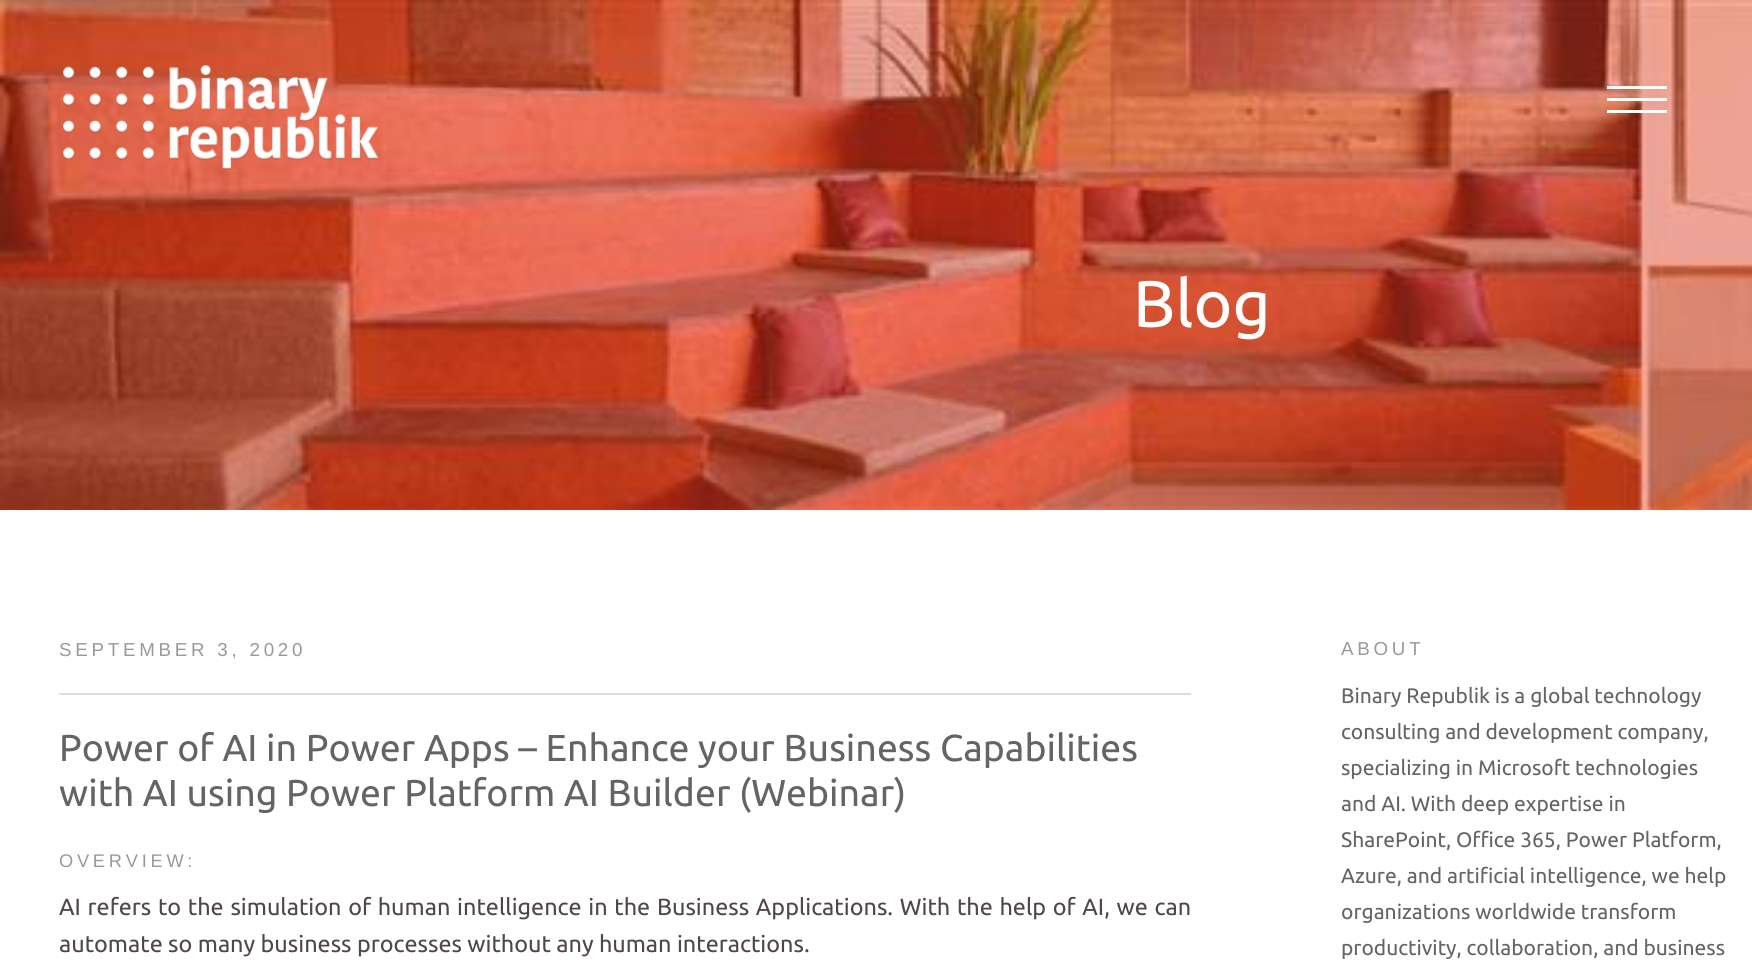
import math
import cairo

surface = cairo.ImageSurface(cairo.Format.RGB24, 1752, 977)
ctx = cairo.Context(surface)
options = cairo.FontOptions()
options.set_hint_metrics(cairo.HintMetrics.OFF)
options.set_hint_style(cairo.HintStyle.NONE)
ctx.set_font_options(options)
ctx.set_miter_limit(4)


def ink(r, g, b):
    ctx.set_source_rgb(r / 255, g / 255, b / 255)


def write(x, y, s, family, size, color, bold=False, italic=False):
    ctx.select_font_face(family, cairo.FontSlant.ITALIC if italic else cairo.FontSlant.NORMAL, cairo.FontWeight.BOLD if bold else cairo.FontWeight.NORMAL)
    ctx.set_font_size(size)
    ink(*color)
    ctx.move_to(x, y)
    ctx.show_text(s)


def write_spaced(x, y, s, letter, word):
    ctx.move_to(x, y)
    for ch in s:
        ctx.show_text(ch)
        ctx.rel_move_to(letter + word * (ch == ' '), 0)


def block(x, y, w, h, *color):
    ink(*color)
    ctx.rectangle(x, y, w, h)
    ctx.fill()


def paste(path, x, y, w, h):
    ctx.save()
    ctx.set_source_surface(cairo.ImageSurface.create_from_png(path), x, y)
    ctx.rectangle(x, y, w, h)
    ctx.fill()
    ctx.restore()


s1 = dict(family="Ubuntu", size=66, color=(255, 255, 255))
s2 = dict(family="Ubuntu", size=37.5, color=(100, 100, 100))
s3 = dict(family="Ubuntu", size=23.4, color=(81, 71, 71))
s4 = dict(family="Ubuntu", size=21, color=(100, 100, 100))

ink(255, 255, 255)
ctx.paint()
paste("pic1.png", 0, 0, 1752, 510)
paste("pic2.png", 62, 65, 316, 105)
block(1607, 98, 60, 3, 255, 255, 255)
block(1607, 86, 60, 3, 255, 255, 255)
block(1607, 110, 60, 3, 255, 255, 255)
write(1133, 327, "Blog", **s1)
block(59, 693, 1132, 2, 220, 220, 220)
ctx.select_font_face("Liberation Sans")
ctx.set_font_size(18.75)
ink(153, 153, 153)
write_spaced(59, 656, "SEPTEMBER 3, 2020", 3.75, 0)
write(59, 761, "Power of AI in Power Apps – Enhance your Business Capabilities", **s2)
write(59, 806, "with AI using Power Platform AI Builder (Webinar)", **s2)
ctx.select_font_face("Liberation Sans")
ctx.set_font_size(18.25)
ink(153, 153, 153)
write_spaced(59, 867, "OVERVIEW:", 3.75, 0)
ctx.select_font_face("Ubuntu")
ctx.set_font_size(23.4)
ink(81, 71, 71)
write_spaced(59, 915, "AI refers to the simulation of human intelligence in the Business Applications. With the help of AI, we can", 0, 1.3)
write(59, 952, "automate so many business processes without any human interactions.", **s3)
ctx.select_font_face("Liberation Sans")
ctx.set_font_size(18.75)
ink(153, 153, 153)
write_spaced(1341, 655, "ABOUT", 3.75, 0)
write(1341, 703, "Binary Republik is a global technology", **s4)
write(1341, 739, "consulting and development company,", **s4)
write(1341, 775, "specializing in Microsoft technologies", **s4)
write(1341, 811, "and AI. With deep expertise in", **s4)
write(1341, 847, "SharePoint, Office 365, Power Platform,", **s4)
write(1341, 883, "Azure, and artificial intelligence, we help", **s4)
write(1341, 919, "organizations worldwide transform", **s4)
write(1341, 955, "productivity, collaboration, and business", **s4)
surface.write_to_png("screenshot.png")
